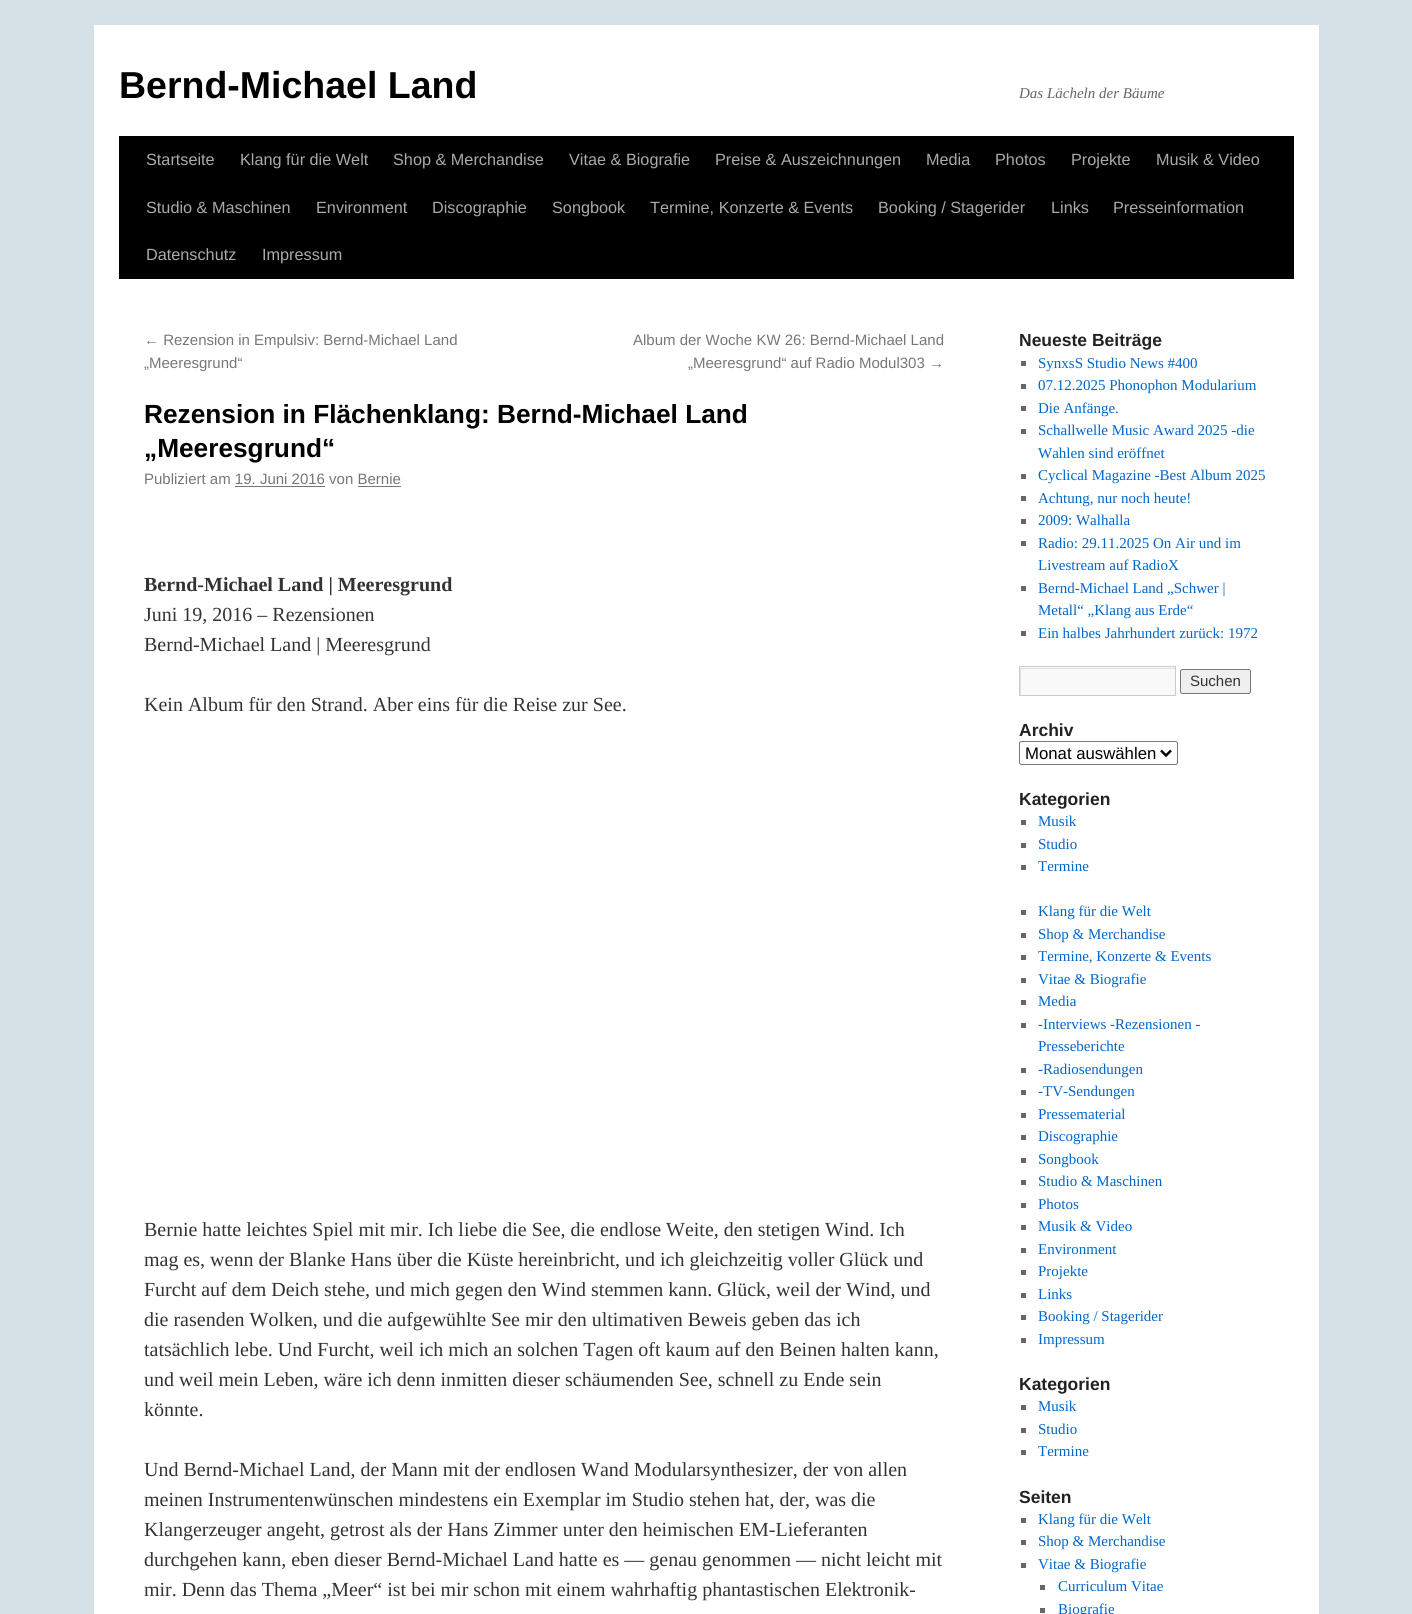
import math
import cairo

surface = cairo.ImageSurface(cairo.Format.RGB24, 1412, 1614)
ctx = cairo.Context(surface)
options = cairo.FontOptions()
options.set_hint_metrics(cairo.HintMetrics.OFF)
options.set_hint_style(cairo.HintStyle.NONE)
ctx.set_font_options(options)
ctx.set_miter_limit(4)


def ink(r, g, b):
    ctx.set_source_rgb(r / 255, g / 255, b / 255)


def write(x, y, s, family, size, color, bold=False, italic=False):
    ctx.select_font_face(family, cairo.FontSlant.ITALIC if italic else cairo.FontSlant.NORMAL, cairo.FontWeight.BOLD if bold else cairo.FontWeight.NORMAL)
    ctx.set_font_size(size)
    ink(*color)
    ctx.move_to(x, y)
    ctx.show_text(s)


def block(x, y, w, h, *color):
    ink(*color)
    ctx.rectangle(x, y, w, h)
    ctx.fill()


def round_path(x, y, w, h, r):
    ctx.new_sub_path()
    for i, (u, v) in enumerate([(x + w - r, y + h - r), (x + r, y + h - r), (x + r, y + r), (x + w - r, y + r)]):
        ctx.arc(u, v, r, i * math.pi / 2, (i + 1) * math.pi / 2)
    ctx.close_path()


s1 = dict(family="Liberation Sans", size=37.5, color=(0, 0, 0), bold=True)
s2 = dict(family="Liberation Serif", size=15, color=(102, 102, 102), italic=True)
s3 = dict(family="Liberation Sans", size=16.25, color=(170, 170, 170))
s4 = dict(family="Liberation Sans", size=15, color=(119, 119, 119))
s5 = dict(family="Liberation Sans", size=26.25, color=(0, 0, 0), bold=True)
s6 = dict(family="Liberation Serif", size=20, color=(51, 51, 51), bold=True)
s7 = dict(family="Liberation Serif", size=20, color=(51, 51, 51))
s8 = dict(family="Liberation Sans", size=17.5, color=(34, 34, 34), bold=True)
s9 = dict(family="Liberation Serif", size=15, color=(0, 102, 204))
s10 = dict(family="Liberation Sans", size=15, color=(51, 51, 51))
s11 = dict(family="Liberation Sans", size=16.75, color=(0, 0, 0))

ink(213, 225, 229)
ctx.paint()
block(94, 25, 1225, 1589, 255, 255, 255)
write(119, 98, "Bernd-Michael Land", **s1)
write(1019, 98, "Das Lächeln der Bäume", **s2)
block(119, 136, 1175, 143, 0, 0, 0)
write(146, 165, "Startseite", **s3)
write(240, 165, "Klang für die Welt", **s3)
write(393, 165, "Shop & Merchandise", **s3)
write(569, 165, "Vitae & Biografie", **s3)
write(715, 165, "Preise & Auszeichnungen", **s3)
write(926, 165, "Media", **s3)
write(995, 165, "Photos", **s3)
write(1071, 165, "Projekte", **s3)
write(1156, 165, "Musik & Video", **s3)
write(146, 213, "Studio & Maschinen", **s3)
write(316, 213, "Environment", **s3)
write(432, 213, "Discographie", **s3)
write(552, 213, "Songbook", **s3)
write(650, 213, "Termine, Konzerte & Events", **s3)
write(878, 213, "Booking / Stagerider", **s3)
write(1051, 213, "Links", **s3)
write(1113, 213, "Presseinformation", **s3)
write(146, 260, "Datenschutz", **s3)
write(262, 260, "Impressum", **s3)
write(144, 345, "← Rezension in Empulsiv: Bernd-Michael Land", **s4)
write(144, 368, "„Meeresgrund“", **s4)
write(633, 345, "Album der Woche KW 26: Bernd-Michael Land", **s4)
write(688, 368, "„Meeresgrund“ auf Radio Modul303 →", **s4)
write(144, 423, "Rezension in Flächenklang: Bernd-Michael Land", **s5)
write(144, 457, "„Meeresgrund“", **s5)
write(144, 484, "Publiziert am 19. Juni 2016 von Bernie", **s4)
block(235, 486, 90, 1, 119, 119, 119)
block(358, 486, 43, 1, 119, 119, 119)
write(144, 591, "Bernd-Michael Land | Meeresgrund", **s6)
write(144, 621, "Juni 19, 2016 – Rezensionen", **s7)
write(144, 651, "Bernd-Michael Land | Meeresgrund", **s7)
write(144, 711, "Kein Album für den Strand. Aber eins für die Reise zur See.", **s7)
write(144, 1236, "Bernie hatte leichtes Spiel mit mir. Ich liebe die See, die endlose Weite, den stetigen Wind. Ich", **s7)
write(144, 1266, "mag es, wenn der Blanke Hans über die Küste hereinbricht, und ich gleichzeitig voller Glück und", **s7)
write(144, 1296, "Furcht auf dem Deich stehe, und mich gegen den Wind stemmen kann. Glück, weil der Wind, und", **s7)
write(144, 1326, "die rasenden Wolken, und die aufgewühlte See mir den ultimativen Beweis geben das ich", **s7)
write(144, 1356, "tatsächlich lebe. Und Furcht, weil ich mich an solchen Tagen oft kaum auf den Beinen halten kann,", **s7)
write(144, 1386, "und weil mein Leben, wäre ich denn inmitten dieser schäumenden See, schnell zu Ende sein", **s7)
write(144, 1416, "könnte.", **s7)
write(144, 1476, "Und Bernd-Michael Land, der Mann mit der endlosen Wand Modularsynthesizer, der von allen", **s7)
write(144, 1506, "meinen Instrumentenwünschen mindestens ein Exemplar im Studio stehen hat, der, was die", **s7)
write(144, 1536, "Klangerzeuger angeht, getrost als der Hans Zimmer unter den heimischen EM-Lieferanten", **s7)
write(144, 1566, "durchgehen kann, eben dieser Bernd-Michael Land hatte es — genau genommen — nicht leicht mit", **s7)
write(144, 1596, "mir. Denn das Thema „Meer“ ist bei mir schon mit einem wahrhaftig phantastischen Elektronik-", **s7)
write(1019, 346, "Neueste Beiträge", **s8)
block(1021, 361, 5, 5, 102, 102, 102)
write(1038, 368, "SynxsS Studio News #400", **s9)
block(1021, 384, 5, 5, 102, 102, 102)
write(1038, 390, "07.12.2025 Phonophon Modularium", **s9)
block(1021, 406, 5, 5, 102, 102, 102)
write(1038, 413, "Die Anfänge.", **s9)
block(1021, 429, 5, 5, 102, 102, 102)
write(1038, 435, "Schallwelle Music Award 2025 -die", **s9)
write(1038, 458, "Wahlen sind eröffnet", **s9)
block(1021, 474, 5, 5, 102, 102, 102)
write(1038, 480, "Cyclical Magazine -Best Album 2025", **s9)
block(1021, 496, 5, 5, 102, 102, 102)
write(1038, 503, "Achtung, nur noch heute!", **s9)
block(1021, 519, 5, 5, 102, 102, 102)
write(1038, 525, "2009: Walhalla", **s9)
block(1021, 541, 5, 5, 102, 102, 102)
write(1038, 548, "Radio: 29.11.2025 On Air und im", **s9)
write(1038, 570, "Livestream auf RadioX", **s9)
block(1021, 586, 5, 5, 102, 102, 102)
write(1038, 593, "Bernd-Michael Land „Schwer |", **s9)
write(1038, 615, "Metall“ „Klang aus Erde“", **s9)
block(1021, 631, 5, 5, 102, 102, 102)
write(1038, 638, "Ein halbes Jahrhundert zurück: 1972", **s9)
block(1020, 667, 155, 28, 249, 249, 249)
ctx.save()
ctx.rectangle(1020, 668, 155, 27)
ctx.clip()
ink(224, 224, 224)
ctx.set_fill_rule(cairo.FillRule.EVEN_ODD)
ctx.new_path()
ctx.move_to(896, 544)
ctx.line_to(1299, 544)
ctx.line_to(1299, 819)
ctx.line_to(896, 819)
ctx.close_path()
ctx.move_to(1021, 669)
ctx.line_to(1176, 669)
ctx.line_to(1176, 696)
ctx.line_to(1021, 696)
ctx.close_path()
ctx.fill()
ctx.restore()
ctx.rectangle(1019.5, 666.5, 156, 29)
ink(204, 204, 204)
ctx.set_line_width(1)
ctx.stroke()
ink(239, 239, 239)
round_path(1180.5, 669.5, 70, 24, 2)
ctx.fill_preserve()
ink(118, 118, 118)
ctx.stroke()
write(1190, 686, "Suchen", **s10)
write(1019, 736, "Archiv", **s8)
round_path(1019.5, 741.5, 158, 23, 2)
ink(118, 118, 118)
ctx.stroke()
ctx.new_path()
ctx.move_to(1161, 750.5)
ctx.line_to(1166, 755.5)
ctx.line_to(1171, 750.5)
ink(0, 0, 0)
ctx.set_line_width(2.5)
ctx.stroke()
write(1025, 759, "Monat auswählen", **s11)
write(1019, 805, "Kategorien", **s8)
block(1021, 820, 5, 5, 102, 102, 102)
write(1038, 826, "Musik", **s9)
block(1021, 843, 5, 5, 102, 102, 102)
write(1038, 849, "Studio", **s9)
block(1021, 865, 5, 5, 102, 102, 102)
write(1038, 871, "Termine", **s9)
block(1021, 910, 5, 5, 102, 102, 102)
write(1038, 916, "Klang für die Welt", **s9)
block(1021, 933, 5, 5, 102, 102, 102)
write(1038, 939, "Shop & Merchandise", **s9)
block(1021, 955, 5, 5, 102, 102, 102)
write(1038, 961, "Termine, Konzerte & Events", **s9)
block(1021, 978, 5, 5, 102, 102, 102)
write(1038, 984, "Vitae & Biografie", **s9)
block(1021, 1000, 5, 5, 102, 102, 102)
write(1038, 1006, "Media", **s9)
block(1021, 1023, 5, 5, 102, 102, 102)
write(1038, 1029, "-Interviews -Rezensionen -", **s9)
write(1038, 1051, "Presseberichte", **s9)
block(1021, 1068, 5, 5, 102, 102, 102)
write(1038, 1074, "-Radiosendungen", **s9)
block(1021, 1090, 5, 5, 102, 102, 102)
write(1038, 1096, "-TV-Sendungen", **s9)
block(1021, 1113, 5, 5, 102, 102, 102)
write(1038, 1119, "Pressematerial", **s9)
block(1021, 1135, 5, 5, 102, 102, 102)
write(1038, 1141, "Discographie", **s9)
block(1021, 1158, 5, 5, 102, 102, 102)
write(1038, 1164, "Songbook", **s9)
block(1021, 1180, 5, 5, 102, 102, 102)
write(1038, 1186, "Studio & Maschinen", **s9)
block(1021, 1203, 5, 5, 102, 102, 102)
write(1038, 1209, "Photos", **s9)
block(1021, 1225, 5, 5, 102, 102, 102)
write(1038, 1231, "Musik & Video", **s9)
block(1021, 1248, 5, 5, 102, 102, 102)
write(1038, 1254, "Environment", **s9)
block(1021, 1270, 5, 5, 102, 102, 102)
write(1038, 1276, "Projekte", **s9)
block(1021, 1293, 5, 5, 102, 102, 102)
write(1038, 1299, "Links", **s9)
block(1021, 1315, 5, 5, 102, 102, 102)
write(1038, 1321, "Booking / Stagerider", **s9)
block(1021, 1338, 5, 5, 102, 102, 102)
write(1038, 1344, "Impressum", **s9)
write(1019, 1390, "Kategorien", **s8)
block(1021, 1405, 5, 5, 102, 102, 102)
write(1038, 1411, "Musik", **s9)
block(1021, 1428, 5, 5, 102, 102, 102)
write(1038, 1434, "Studio", **s9)
block(1021, 1450, 5, 5, 102, 102, 102)
write(1038, 1456, "Termine", **s9)
write(1019, 1503, "Seiten", **s8)
block(1021, 1518, 5, 5, 102, 102, 102)
write(1038, 1524, "Klang für die Welt", **s9)
block(1021, 1540, 5, 5, 102, 102, 102)
write(1038, 1546, "Shop & Merchandise", **s9)
block(1021, 1563, 5, 5, 102, 102, 102)
write(1038, 1569, "Vitae & Biografie", **s9)
block(1040, 1585, 5, 5, 102, 102, 102)
write(1058, 1591, "Curriculum Vitae", **s9)
block(1040, 1608, 5, 5, 102, 102, 102)
write(1058, 1614, "Biografie", **s9)
surface.write_to_png("screenshot.png")
